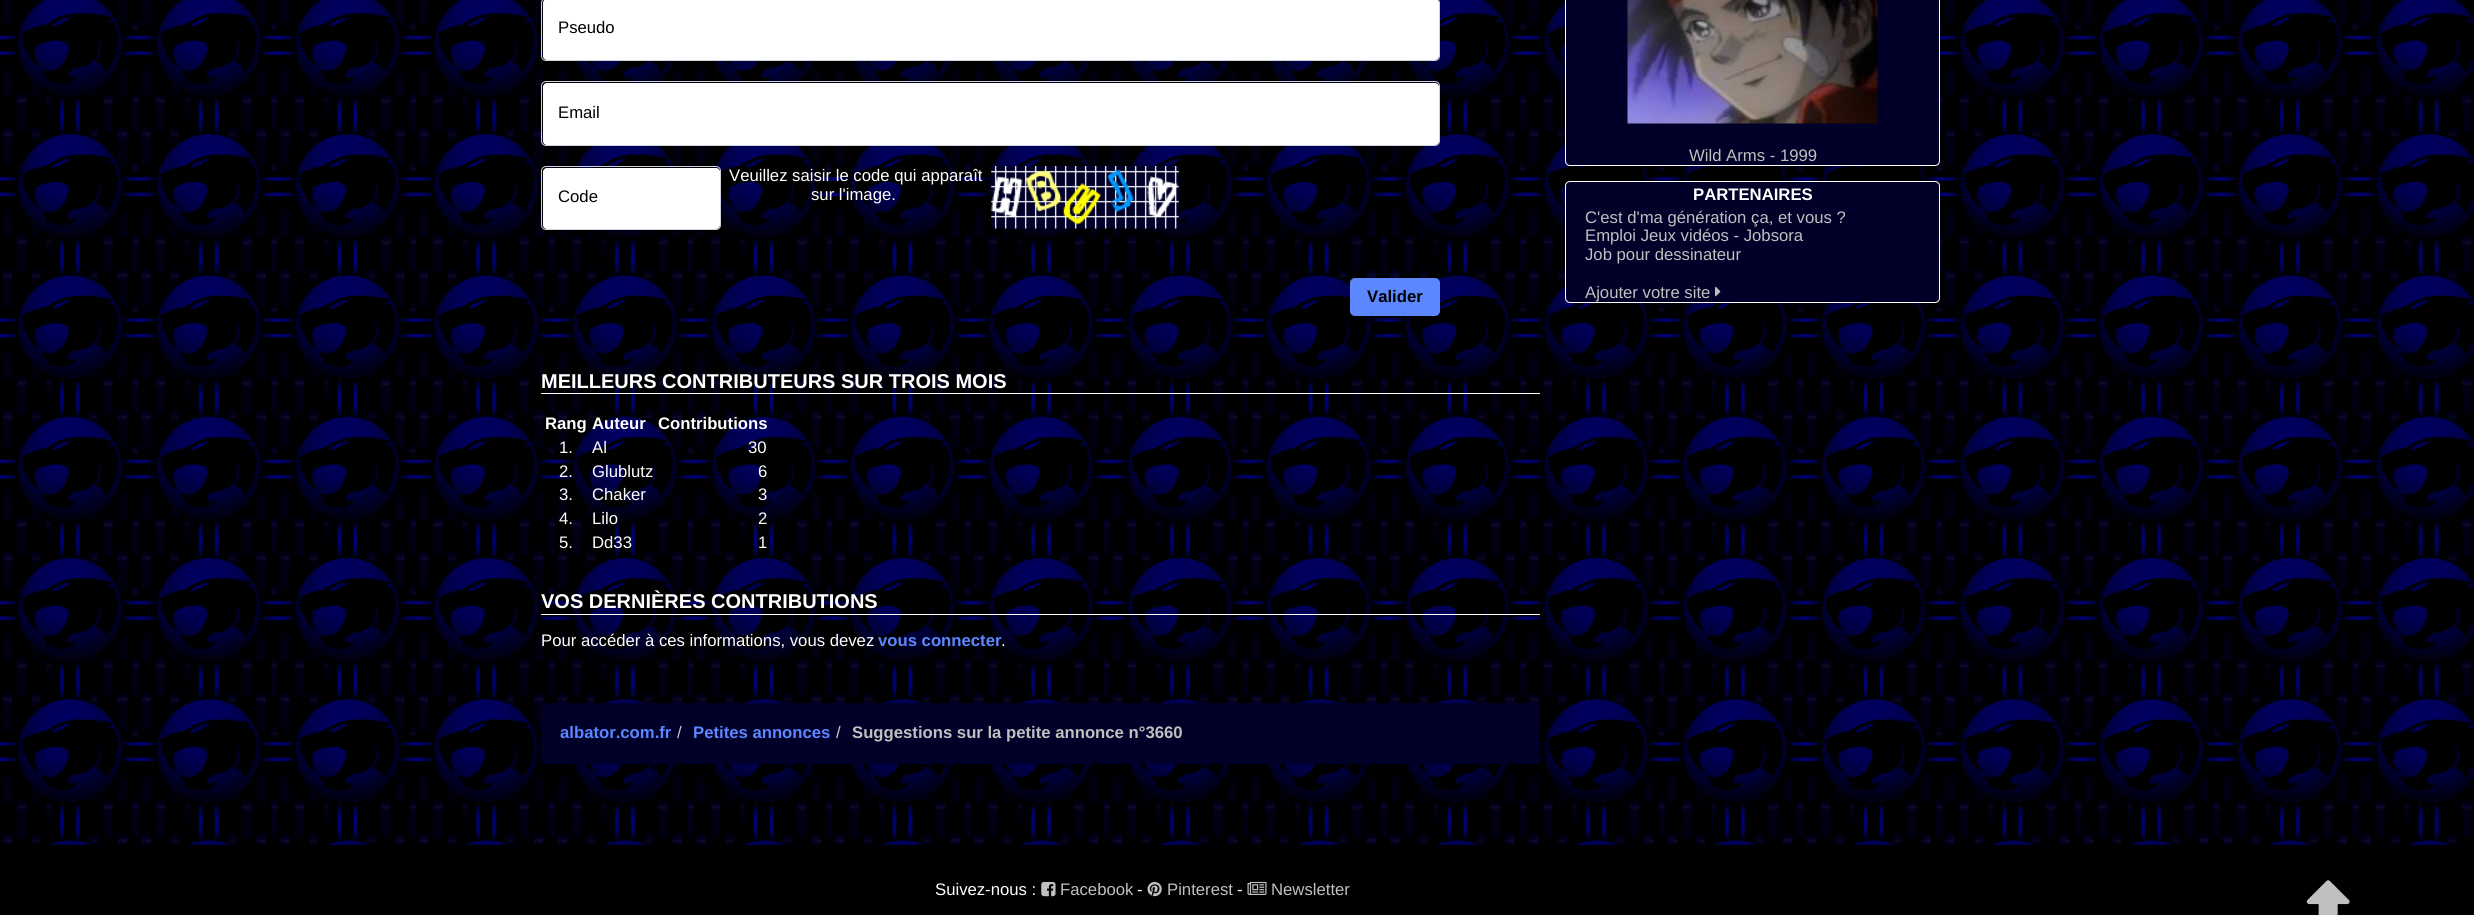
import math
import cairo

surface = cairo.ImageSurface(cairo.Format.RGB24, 2474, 915)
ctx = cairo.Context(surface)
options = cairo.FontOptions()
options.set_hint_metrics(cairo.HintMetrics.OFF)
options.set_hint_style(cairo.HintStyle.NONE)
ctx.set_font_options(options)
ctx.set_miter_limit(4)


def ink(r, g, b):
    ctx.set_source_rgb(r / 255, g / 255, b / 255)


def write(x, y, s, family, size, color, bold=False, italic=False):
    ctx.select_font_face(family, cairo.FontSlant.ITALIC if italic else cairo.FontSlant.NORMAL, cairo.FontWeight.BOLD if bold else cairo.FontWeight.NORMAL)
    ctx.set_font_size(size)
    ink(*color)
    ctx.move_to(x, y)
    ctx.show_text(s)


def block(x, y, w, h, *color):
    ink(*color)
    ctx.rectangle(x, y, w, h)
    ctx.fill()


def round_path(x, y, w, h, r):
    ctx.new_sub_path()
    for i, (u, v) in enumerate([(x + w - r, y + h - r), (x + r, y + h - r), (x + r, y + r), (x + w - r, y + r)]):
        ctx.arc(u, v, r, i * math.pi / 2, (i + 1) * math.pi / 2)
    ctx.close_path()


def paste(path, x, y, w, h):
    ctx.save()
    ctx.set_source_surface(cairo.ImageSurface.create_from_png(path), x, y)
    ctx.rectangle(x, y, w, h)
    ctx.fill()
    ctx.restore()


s1 = dict(family="Liberation Sans", size=16.7, color=(0, 0, 0))
s2 = dict(family="Liberation Sans", size=16.7, color=(255, 255, 255))
s3 = dict(family="Liberation Sans", size=16.7, color=(0, 0, 0), bold=True)
s4 = dict(family="Liberation Sans", size=20, color=(255, 255, 255), bold=True)
s5 = dict(family="Liberation Sans", size=16.7, color=(255, 255, 255), bold=True)
s6 = dict(family="Liberation Sans", size=16.7, color=(92, 135, 255), bold=True)
s7 = dict(family="Liberation Sans", size=16.7, color=(204, 204, 204))
s8 = dict(family="Liberation Sans", size=16.7, color=(192, 192, 192), bold=True)
s9 = dict(family="Liberation Sans", size=16.7, color=(192, 192, 192))

ink(0, 0, 0)
ctx.paint()
paste("pic1.png", 0, 0, 2474, 845)
ink(255, 255, 255)
round_path(543, -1, 896, 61, 4)
ctx.fill()
round_path(541.5, -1.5, 898, 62, 4.5)
ink(206, 212, 218)
ctx.set_line_width(1)
ctx.stroke()
write(558, 33, "Pseudo", **s1)
ink(255, 255, 255)
round_path(543, 83, 896, 62, 4)
ctx.fill()
round_path(541.5, 81.5, 898, 64, 4.5)
ink(206, 212, 218)
ctx.stroke()
write(558, 118, "Email", **s1)
ink(255, 255, 255)
round_path(543, 168, 177, 61, 4)
ctx.fill()
round_path(541.5, 166.5, 179, 63, 4.5)
ink(206, 212, 218)
ctx.stroke()
write(558, 202, "Code", **s1)
write(729, 181, "Veuillez saisir le code qui apparaît", **s2)
write(811, 200, "sur l'image.", **s2)
paste("pic2.png", 991, 166, 188, 63)
ink(92, 135, 255)
round_path(1350, 278, 90, 38, 5)
ctx.fill()
write(1367, 302, "Valider", **s3)
block(541, 393, 999, 1, 255, 255, 255)
write(541, 388, "MEILLEURS CONTRIBUTEURS SUR TROIS MOIS", **s4)
write(545, 429, "Rang", **s5)
write(592, 429, "Auteur", **s5)
write(658, 429, "Contributions", **s5)
write(559, 453, "1.", **s2)
write(592, 453, "Al", **s2)
write(748, 453, "30", **s2)
write(559, 477, "2.", **s2)
write(592, 477, "Glublutz", **s2)
write(758, 477, "6", **s2)
write(559, 500, "3.", **s2)
write(592, 500, "Chaker", **s2)
write(758, 500, "3", **s2)
write(559, 524, "4.", **s2)
write(592, 524, "Lilo", **s2)
write(758, 524, "2", **s2)
write(559, 548, "5.", **s2)
write(592, 548, "Dd33", **s2)
write(758, 548, "1", **s2)
block(541, 614, 999, 1, 255, 255, 255)
write(541, 608, "VOS DERNIÈRES CONTRIBUTIONS", **s4)
write(541, 646, "Pour accéder à ces informations, vous devez", **s2)
write(878, 646, "vous connecter", **s6)
write(1001, 646, ".", **s2)
ink(0, 0, 40)
round_path(541, 703, 999, 61, 5)
ctx.fill()
write(560, 738, "albator.com.fr", **s6)
write(677, 738, "/", **s7)
write(693, 738, "Petites annonces", **s6)
write(836, 738, "/", **s7)
write(852, 738, "Suggestions sur la petite annonce n°3660", **s8)
ink(0, 0, 40)
round_path(1565.5, -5.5, 374, 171, 4.5)
ctx.fill_preserve()
ink(255, 255, 255)
ctx.stroke()
paste("pic3.png", 1627, 0, 251, 124)
write(1689, 161, "Wild Arms - 1999", **s9)
ink(0, 0, 40)
round_path(1565.5, 181.5, 374, 121, 4.5)
ctx.fill_preserve()
ink(255, 255, 255)
ctx.stroke()
write(1693, 200, "PARTENAIRES", **s5)
write(1585, 223, "C'est d'ma génération ça, et vous ?", **s9)
write(1585, 241, "Emploi Jeux vidéos - Jobsora", **s9)
write(1585, 260, "Job pour dessinateur", **s9)
write(1585, 298, "Ajouter votre site", **s9)
paste("pic4.png", 1715, 286, 6, 11)
write(935, 895, "Suivez-nous :", **s2)
paste("pic5.png", 1041, 881, 15, 16)
write(1060, 895, "Facebook", **s9)
write(1137, 895, "-", **s2)
paste("pic6.png", 1147, 881, 15, 16)
write(1167, 895, "Pinterest", **s9)
write(1237, 895, "-", **s2)
paste("pic7.png", 1247, 881, 20, 14)
write(1271, 895, "Newsletter", **s9)
paste("pic8.png", 2306, 880, 44, 35)
surface.write_to_png("screenshot.png")
